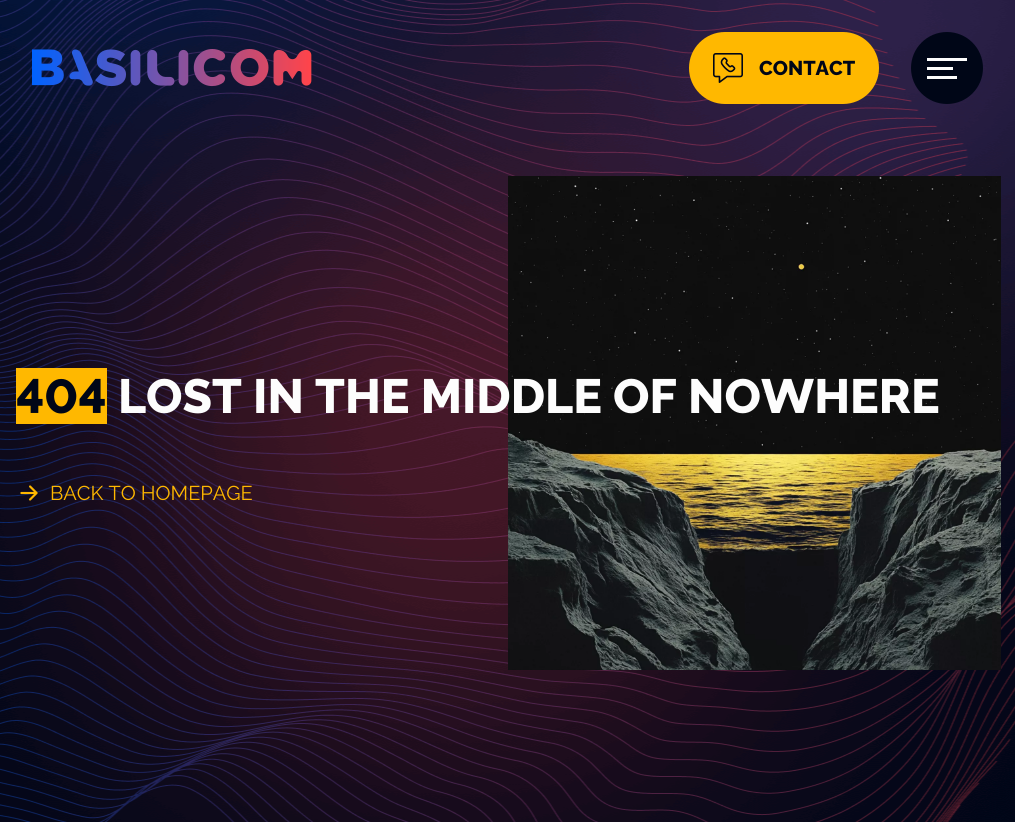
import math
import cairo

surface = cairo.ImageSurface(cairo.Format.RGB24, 1015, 822)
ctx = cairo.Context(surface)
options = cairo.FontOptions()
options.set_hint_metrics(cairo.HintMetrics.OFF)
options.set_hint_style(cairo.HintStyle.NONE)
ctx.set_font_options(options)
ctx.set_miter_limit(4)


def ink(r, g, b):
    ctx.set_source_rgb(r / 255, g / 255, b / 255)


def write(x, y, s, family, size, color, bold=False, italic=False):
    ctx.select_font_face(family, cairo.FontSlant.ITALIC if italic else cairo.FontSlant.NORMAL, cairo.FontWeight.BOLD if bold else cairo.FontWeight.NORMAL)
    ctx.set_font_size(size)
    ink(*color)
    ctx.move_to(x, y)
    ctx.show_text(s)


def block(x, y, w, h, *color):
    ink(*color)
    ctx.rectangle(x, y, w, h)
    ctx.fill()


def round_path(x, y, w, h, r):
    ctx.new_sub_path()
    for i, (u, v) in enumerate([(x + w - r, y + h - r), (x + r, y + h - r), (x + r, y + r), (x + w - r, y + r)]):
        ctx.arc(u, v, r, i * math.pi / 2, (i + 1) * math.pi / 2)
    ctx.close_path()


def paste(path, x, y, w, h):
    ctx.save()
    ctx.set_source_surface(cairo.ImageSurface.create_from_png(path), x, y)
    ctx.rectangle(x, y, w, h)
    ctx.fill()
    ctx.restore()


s1 = dict(family="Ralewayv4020 ExtraBold", size=20, color=(0, 6, 23))
s2 = dict(family="Ralewayv4020 ExtraBold", size=48, color=(0, 6, 23))
s3 = dict(family="Ralewayv4020 ExtraBold", size=48, color=(253, 253, 253))
s4 = dict(family="Ralewayv4020", size=20, color=(255, 184, 0))

ink(0, 6, 23)
ctx.paint()
paste("pic1.png", 0, 0, 1015, 822)
paste("pic2.png", 32, 49, 280, 38)
ink(255, 184, 0)
round_path(689, 32, 190, 72, 36)
ctx.fill()
paste("pic3.png", 713, 53, 30, 30)
write(759, 75, "CONTACT", **s1)
ctx.new_path()
ctx.arc(947, 68, 36, 0, 2 * math.pi)
ctx.fill()
block(927, 58, 40, 3, 253, 253, 253)
block(927, 67, 26, 3, 253, 253, 253)
block(927, 76, 30, 3, 253, 253, 253)
paste("pic4.png", 508, 176, 493, 494)
block(16, 368, 91, 56, 255, 184, 0)
write(16, 413, "404", **s2)
write(118, 413, "LOST IN THE MIDDLE OF NOWHERE", **s3)
paste("pic5.png", 20, 485, 18, 16)
write(50, 500, "BACK TO HOMEPAGE", **s4)
surface.write_to_png("screenshot.png")
